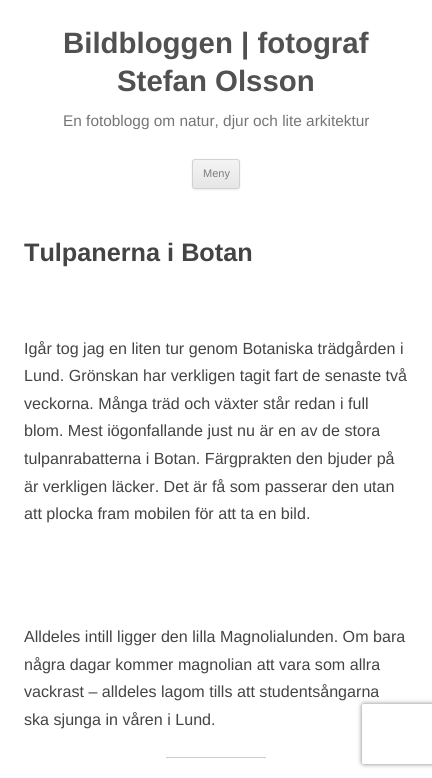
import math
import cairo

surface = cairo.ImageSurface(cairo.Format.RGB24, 432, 778)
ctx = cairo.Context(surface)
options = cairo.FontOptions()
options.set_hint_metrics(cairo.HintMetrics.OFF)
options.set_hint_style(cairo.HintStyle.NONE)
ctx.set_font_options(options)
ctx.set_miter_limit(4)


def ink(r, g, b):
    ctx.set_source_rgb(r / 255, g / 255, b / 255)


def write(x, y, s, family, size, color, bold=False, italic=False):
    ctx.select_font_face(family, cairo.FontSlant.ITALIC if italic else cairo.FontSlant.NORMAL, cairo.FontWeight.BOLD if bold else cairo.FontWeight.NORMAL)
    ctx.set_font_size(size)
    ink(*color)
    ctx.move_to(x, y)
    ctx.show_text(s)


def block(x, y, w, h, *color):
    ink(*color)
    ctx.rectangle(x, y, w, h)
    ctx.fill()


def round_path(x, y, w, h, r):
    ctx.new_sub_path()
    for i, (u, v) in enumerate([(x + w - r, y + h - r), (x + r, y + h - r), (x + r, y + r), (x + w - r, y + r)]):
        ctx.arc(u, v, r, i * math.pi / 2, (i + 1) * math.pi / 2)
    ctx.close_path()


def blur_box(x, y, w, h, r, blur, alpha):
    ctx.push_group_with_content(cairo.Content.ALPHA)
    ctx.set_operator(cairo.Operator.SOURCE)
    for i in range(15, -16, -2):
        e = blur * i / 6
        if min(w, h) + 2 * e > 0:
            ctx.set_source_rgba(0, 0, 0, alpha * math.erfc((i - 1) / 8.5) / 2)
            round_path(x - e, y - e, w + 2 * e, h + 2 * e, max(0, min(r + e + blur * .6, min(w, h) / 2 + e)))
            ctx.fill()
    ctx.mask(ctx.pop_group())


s1 = dict(family="Liberation Sans", size=29.4, color=(81, 81, 81), bold=True)
s2 = dict(family="Liberation Sans", size=15.4, color=(117, 117, 117))
s3 = dict(family="Liberation Sans", size=11, color=(124, 124, 124))
s4 = dict(family="Liberation Sans", size=25.25, color=(68, 68, 68), bold=True)
s5 = dict(family="Liberation Sans", size=16.1, color=(68, 68, 68))

ink(255, 255, 255)
ctx.paint()
write(63, 53, "Bildbloggen | fotograf", **s1)
write(117, 91, "Stefan Olsson", **s1)
write(63, 126, "En fotoblogg om natur, djur och lite arkitektur", **s2)
ink(64, 64, 64)
blur_box(192, 160, 48, 30, 3, 1, 0.1)
ctx.save()
round_path(192, 159, 48, 30, 3)
ctx.clip()
gradient = cairo.LinearGradient(216, 160, 216, 188)
gradient.add_color_stop_rgba(0, 0.957, 0.957, 0.957, 1)
gradient.add_color_stop_rgba(1, 0.902, 0.902, 0.902, 1)
ctx.set_source(gradient)
ctx.rectangle(192, 160, 48, 28)
ctx.fill()
ctx.restore()
round_path(192.5, 159.5, 47, 29, 2.5)
ink(210, 210, 210)
ctx.set_line_width(1)
ctx.stroke()
write(203, 177, "Meny", **s3)
write(24, 261, "Tulpanerna i Botan", **s4)
write(24, 354, "Igår tog jag en liten tur genom Botaniska trädgården i", **s5)
write(24, 381, "Lund. Grönskan har verkligen tagit fart de senaste två", **s5)
write(24, 409, "veckorna. Många träd och växter står redan i full", **s5)
write(24, 436, "blom. Mest iögonfallande just nu är en av de stora", **s5)
write(24, 464, "tulpanrabatterna i Botan. Färgprakten den bjuder på", **s5)
write(24, 492, "är verkligen läcker. Det är få som passerar den utan", **s5)
write(24, 519, "att plocka fram mobilen för att ta en bild.", **s5)
write(24, 642, "Alldeles intill ligger den lilla Magnolialunden. Om bara", **s5)
write(24, 670, "några dagar kommer magnolian att vara som allra", **s5)
write(24, 697, "vackrast – alldeles lagom tills att studentsångarna", **s5)
write(24, 725, "ska sjunga in våren i Lund.", **s5)
block(166, 757, 100, 1, 204, 204, 204)
ctx.save()
ctx.set_fill_rule(cairo.FillRule.EVEN_ODD)
ctx.new_path()
ctx.move_to(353, 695)
ctx.line_to(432, 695)
ctx.line_to(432, 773)
ctx.line_to(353, 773)
ctx.close_path()
ctx.move_to(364, 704)
ctx.line_to(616, 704)
ctx.curve_to(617, 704, 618, 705, 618, 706)
ctx.line_to(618, 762)
ctx.curve_to(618, 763, 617, 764, 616, 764)
ctx.line_to(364, 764)
ctx.curve_to(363, 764, 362, 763, 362, 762)
ctx.line_to(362, 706)
ctx.curve_to(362, 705, 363, 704, 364, 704)
ctx.close_path()
ctx.clip()
ink(128, 128, 128)
blur_box(362, 704, 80, 60, 2, 2.5, 1)
ctx.restore()
surface.write_to_png("screenshot.png")
